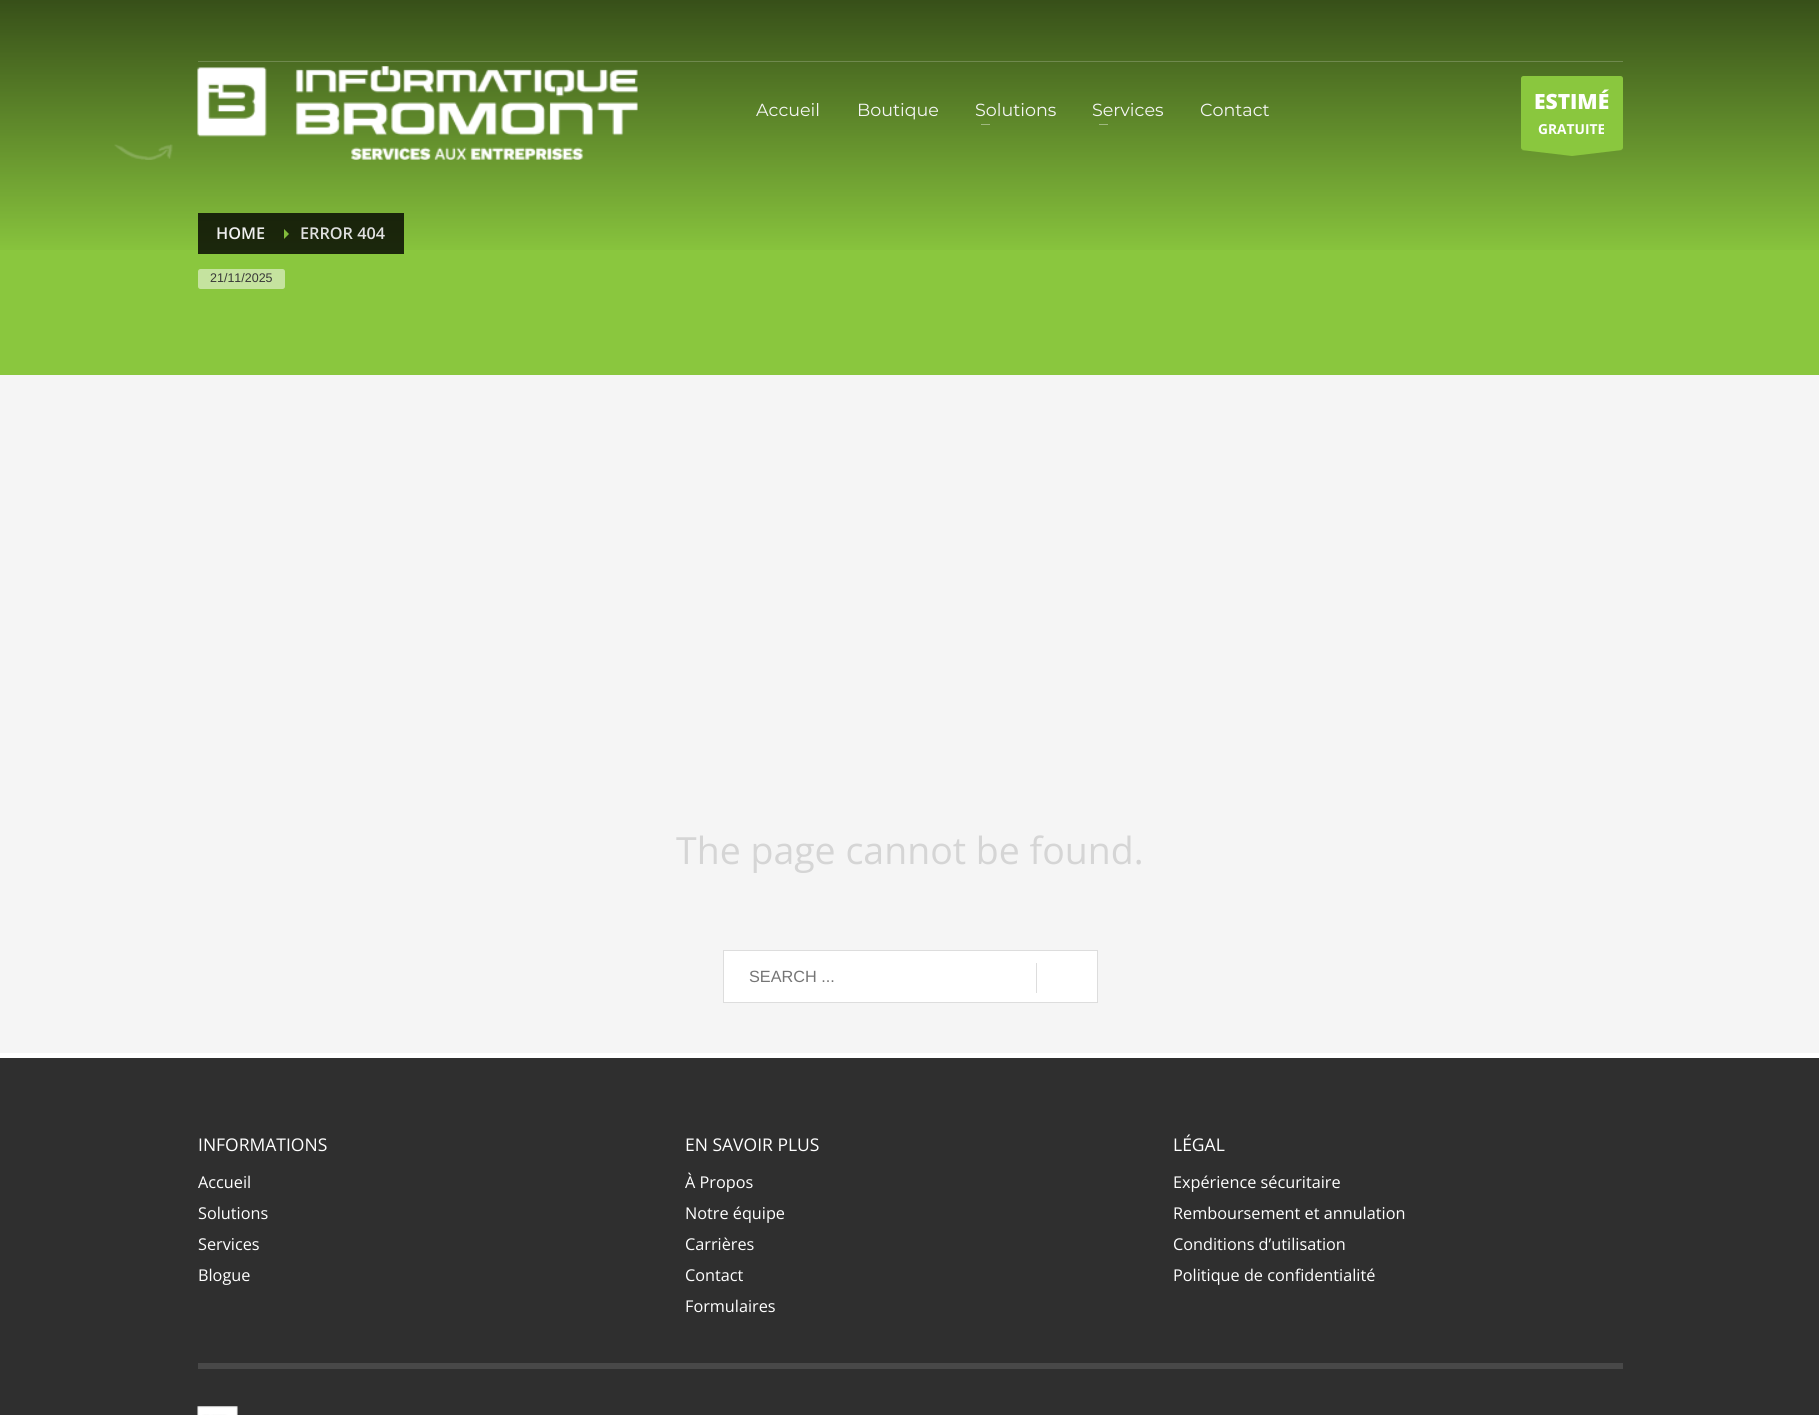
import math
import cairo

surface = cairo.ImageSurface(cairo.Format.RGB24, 1819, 1415)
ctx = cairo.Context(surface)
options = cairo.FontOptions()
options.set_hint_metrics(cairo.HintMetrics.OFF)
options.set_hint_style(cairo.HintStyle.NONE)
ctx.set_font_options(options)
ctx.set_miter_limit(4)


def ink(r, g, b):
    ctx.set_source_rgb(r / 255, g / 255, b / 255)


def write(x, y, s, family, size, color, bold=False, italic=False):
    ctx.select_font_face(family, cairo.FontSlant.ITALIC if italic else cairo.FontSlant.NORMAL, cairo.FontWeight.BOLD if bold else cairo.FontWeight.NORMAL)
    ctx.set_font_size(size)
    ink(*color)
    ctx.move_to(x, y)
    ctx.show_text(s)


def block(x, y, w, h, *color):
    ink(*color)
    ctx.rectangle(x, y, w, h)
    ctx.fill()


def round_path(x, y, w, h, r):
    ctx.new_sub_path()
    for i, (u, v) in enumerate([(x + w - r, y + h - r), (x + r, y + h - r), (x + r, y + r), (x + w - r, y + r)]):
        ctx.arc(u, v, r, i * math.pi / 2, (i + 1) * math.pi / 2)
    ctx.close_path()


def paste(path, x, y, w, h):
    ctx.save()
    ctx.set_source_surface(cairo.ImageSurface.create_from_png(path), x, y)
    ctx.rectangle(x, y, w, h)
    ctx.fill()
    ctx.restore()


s1 = dict(family="Open Sans SemiBold", size=16.25, color=(255, 255, 255))
s2 = dict(family="Open Sans SemiBold", size=16.25, color=(238, 238, 238))
s3 = dict(family="Montserrat", size=17.5, color=(245, 245, 245))
s4 = dict(family="Open Sans ExtraBold", size=21, color=(255, 255, 255))
s5 = dict(family="Open Sans", size=13.75, color=(255, 255, 255), bold=True)
s6 = dict(family="Liberation Sans", size=12.5, color=(56, 56, 56))
s7 = dict(family="Open Sans", size=37.5, color=(213, 213, 213))
s8 = dict(family="Liberation Sans", size=16.25, color=(117, 117, 117))
s9 = dict(family="Open Sans", size=17.5, color=(255, 255, 255))
s10 = dict(family="Open Sans", size=16.25, color=(255, 255, 255))

ink(245, 245, 245)
ctx.paint()
block(0, 0, 1819, 375, 138, 199, 62)
block(198, 213, 206, 41, 28, 40, 12)
write(216, 239, "HOME", **s1)
ink(138, 199, 62)
ctx.new_path()
ctx.move_to(284, 239)
ctx.line_to(284, 229)
ctx.line_to(289, 234)
ctx.close_path()
ctx.fill()
write(300, 239, "ERROR 404", **s2)
gradient = cairo.LinearGradient(910, 0, 910, 259)
gradient.add_color_stop_rgba(0, 0, 0, 0, 0.6)
gradient.add_color_stop_rgba(1, 0, 0, 0, 0)
ctx.set_source(gradient)
ctx.rectangle(0, 0, 1819, 250)
ctx.fill()
block(198, 61, 1425, 1, 111, 137, 78)
paste("pic1.png", 114, 144, 59, 16)
paste("pic2.png", 197, 66, 441, 94)
write(756, 116, "Accueil", **s3)
write(857, 116, "Boutique", **s3)
write(975, 116, "Solutions", **s3)
block(981, 124, 9, 1, 159, 184, 128)
write(1092, 116, "Services", **s3)
block(1099, 124, 9, 1, 159, 184, 128)
write(1200, 116, "Contact", **s3)
ink(138, 199, 62)
round_path(1521, 76, 102, 74, 2.5)
ctx.fill()
write(1534, 109, "ESTIMÉ", **s4)
write(1538, 134, "GRATUITE", **s5)
ink(138, 199, 62)
ctx.set_fill_rule(cairo.FillRule.EVEN_ODD)
ctx.new_path()
ctx.move_to(1622, 150)
ctx.line_to(1572, 156)
ctx.line_to(1521, 150)
ctx.close_path()
ctx.fill()
ink(197, 227, 159)
round_path(198, 269, 87, 20, 2.5)
ctx.fill()
write(210, 282, "21/11/2025", **s6)
write(676, 864, "The page cannot be found.", **s7)
ink(255, 255, 255)
ctx.rectangle(723.5, 950.5, 374, 52)
ctx.fill_preserve()
ink(221, 221, 221)
ctx.set_line_width(1)
ctx.stroke()
write(749, 982, "SEARCH ...", **s8)
block(1036, 963, 1, 30, 221, 221, 221)
block(0, 1058, 1819, 357, 47, 47, 47)
block(0, 1053, 1819, 5, 255, 255, 255)
write(198, 1151, "INFORMATIONS", **s9)
write(198, 1188, "Accueil", **s10)
write(198, 1219, "Solutions", **s10)
write(198, 1250, "Services", **s10)
write(198, 1281, "Blogue", **s10)
write(685, 1151, "EN SAVOIR PLUS", **s9)
write(685, 1188, "À Propos", **s10)
write(685, 1219, "Notre équipe", **s10)
write(685, 1250, "Carrières", **s10)
write(685, 1281, "Contact", **s10)
write(685, 1312, "Formulaires", **s10)
write(1173, 1151, "LÉGAL", **s9)
write(1173, 1188, "Expérience sécuritaire", **s10)
write(1173, 1219, "Remboursement et annulation", **s10)
write(1173, 1250, "Conditions d’utilisation", **s10)
write(1173, 1281, "Politique de confidentialité", **s10)
block(198, 1363, 1425, 6, 72, 72, 72)
paste("pic3.png", 197, 1406, 41, 9)
surface.write_to_png("screenshot.png")
